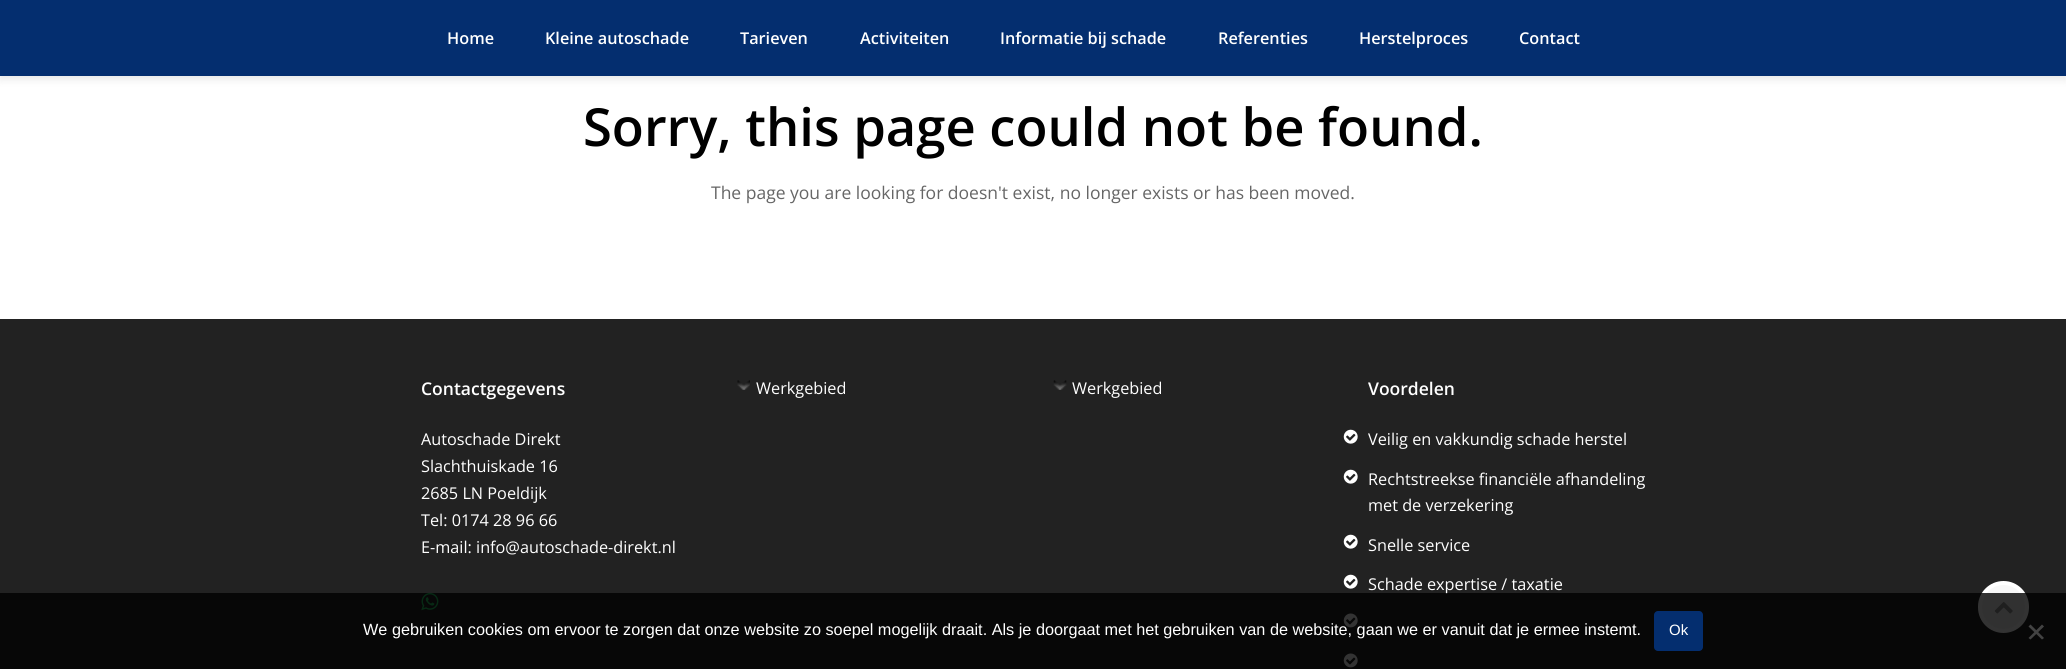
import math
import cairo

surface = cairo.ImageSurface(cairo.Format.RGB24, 2066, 669)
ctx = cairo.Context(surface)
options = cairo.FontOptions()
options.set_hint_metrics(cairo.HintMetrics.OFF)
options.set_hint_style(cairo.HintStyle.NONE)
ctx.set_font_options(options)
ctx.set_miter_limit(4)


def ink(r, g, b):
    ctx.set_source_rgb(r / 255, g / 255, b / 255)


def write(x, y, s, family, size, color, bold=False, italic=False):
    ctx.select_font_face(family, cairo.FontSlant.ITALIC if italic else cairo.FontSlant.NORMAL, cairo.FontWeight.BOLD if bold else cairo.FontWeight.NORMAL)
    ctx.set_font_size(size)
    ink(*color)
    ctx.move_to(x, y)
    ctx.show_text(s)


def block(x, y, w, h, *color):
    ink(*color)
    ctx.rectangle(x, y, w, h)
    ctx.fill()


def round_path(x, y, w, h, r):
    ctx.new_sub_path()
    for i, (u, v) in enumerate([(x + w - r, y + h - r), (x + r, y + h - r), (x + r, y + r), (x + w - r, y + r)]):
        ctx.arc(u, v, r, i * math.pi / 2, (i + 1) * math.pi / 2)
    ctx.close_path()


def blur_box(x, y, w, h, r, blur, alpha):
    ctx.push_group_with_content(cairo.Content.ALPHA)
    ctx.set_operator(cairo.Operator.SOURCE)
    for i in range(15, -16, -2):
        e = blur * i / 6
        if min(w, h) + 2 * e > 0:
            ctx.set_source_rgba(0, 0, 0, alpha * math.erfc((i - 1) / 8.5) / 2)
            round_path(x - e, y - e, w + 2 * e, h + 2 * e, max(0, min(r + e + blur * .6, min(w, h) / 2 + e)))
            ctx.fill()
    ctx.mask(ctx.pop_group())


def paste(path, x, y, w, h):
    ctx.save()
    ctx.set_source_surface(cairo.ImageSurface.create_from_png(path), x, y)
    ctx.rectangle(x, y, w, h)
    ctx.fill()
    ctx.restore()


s1 = dict(family="Open Sans SemiBold", size=16.25, color=(255, 255, 255))
s2 = dict(family="Open Sans SemiBold", size=52.5, color=(0, 0, 0))
s3 = dict(family="Open Sans", size=17.5, color=(102, 102, 102))
s4 = dict(family="Open Sans SemiBold", size=17.5, color=(255, 255, 255))
s5 = dict(family="Open Sans", size=16.25, color=(255, 255, 255))
s6 = dict(family="Liberation Sans", size=16.25, color=(255, 255, 255))
s7 = dict(family="Liberation Sans", size=15, color=(255, 255, 255))

ink(255, 255, 255)
ctx.paint()
ink(0, 0, 0)
blur_box(0, 3, 2066, 76, 0, 4.5, 0.1)
block(0, 0, 2066, 76, 4, 46, 111)
write(447, 44, "Home", **s1)
write(545, 44, "Kleine autoschade", **s1)
write(740, 44, "Tarieven", **s1)
write(860, 44, "Activiteiten", **s1)
write(1000, 44, "Informatie bij schade", **s1)
write(1218, 44, "Referenties", **s1)
write(1359, 44, "Herstelproces", **s1)
write(1519, 44, "Contact", **s1)
write(583, 146, "Sorry, this page could not be found.", **s2)
write(711, 199, "The page you are looking for doesn't exist, no longer exists or has been moved.", **s3)
block(0, 319, 2066, 350, 34, 34, 34)
write(421, 395, "Contactgegevens", **s4)
write(421, 445, "Autoschade Direkt", **s5)
write(421, 472, "Slachthuiskade 16", **s5)
write(421, 499, "2685 LN Poeldijk", **s5)
write(421, 526, "Tel: 0174 28 96 66", **s5)
write(421, 553, "E-mail: info@autoschade-direkt.nl", **s5)
paste("pic1.png", 421, 593, 18, 18)
paste("pic2.png", 737, 380, 13, 10)
write(756, 394, "Werkgebied", **s5)
paste("pic3.png", 1053, 380, 14, 10)
write(1072, 394, "Werkgebied", **s5)
write(1368, 395, "Voordelen", **s4)
paste("pic4.png", 1343, 429, 15, 15)
write(1368, 445, "Veilig en vakkundig schade herstel", **s5)
paste("pic4.png", 1343, 469, 15, 15)
write(1368, 485, "Rechtstreekse financiële afhandeling", **s5)
write(1368, 511, "met de verzekering", **s5)
paste("pic4.png", 1343, 534, 15, 15)
write(1368, 551, "Snelle service", **s5)
paste("pic4.png", 1343, 574, 15, 15)
write(1368, 590, "Schade expertise / taxatie", **s5)
paste("pic5.png", 1343, 613, 15, 15)
paste("pic5.png", 1343, 653, 15, 15)
ink(247, 247, 247)
round_path(1980, 583, 47, 48, 23.5)
ctx.fill_preserve()
ink(255, 255, 255)
ctx.set_line_width(4)
ctx.stroke()
paste("pic6.png", 1994, 602, 19, 12)
ctx.set_source_rgba(0, 0, 0, 0.8)
ctx.rectangle(0, 593, 2066, 76)
ctx.fill()
write(363, 635, "We gebruiken cookies om ervoor te zorgen dat onze website zo soepel mogelijk draait. Als je doorgaat met het gebruiken van de website, gaan we er vanuit dat je ermee instemt.", **s6)
ink(4, 46, 111)
round_path(1654, 611, 49, 40, 4)
ctx.fill()
write(1669, 635, "Ok", **s7)
ink(67, 67, 67)
ctx.new_path()
ctx.move_to(2042, 624.5)
ctx.line_to(2044, 626.5)
ctx.line_to(2030.5, 639.5)
ctx.line_to(2028.5, 638)
ctx.close_path()
ctx.fill()
ctx.new_path()
ctx.move_to(2028.5, 626.5)
ctx.line_to(2030.5, 624.5)
ctx.line_to(2044, 638)
ctx.line_to(2042, 639.5)
ctx.close_path()
ctx.fill()
surface.write_to_png("screenshot.png")
